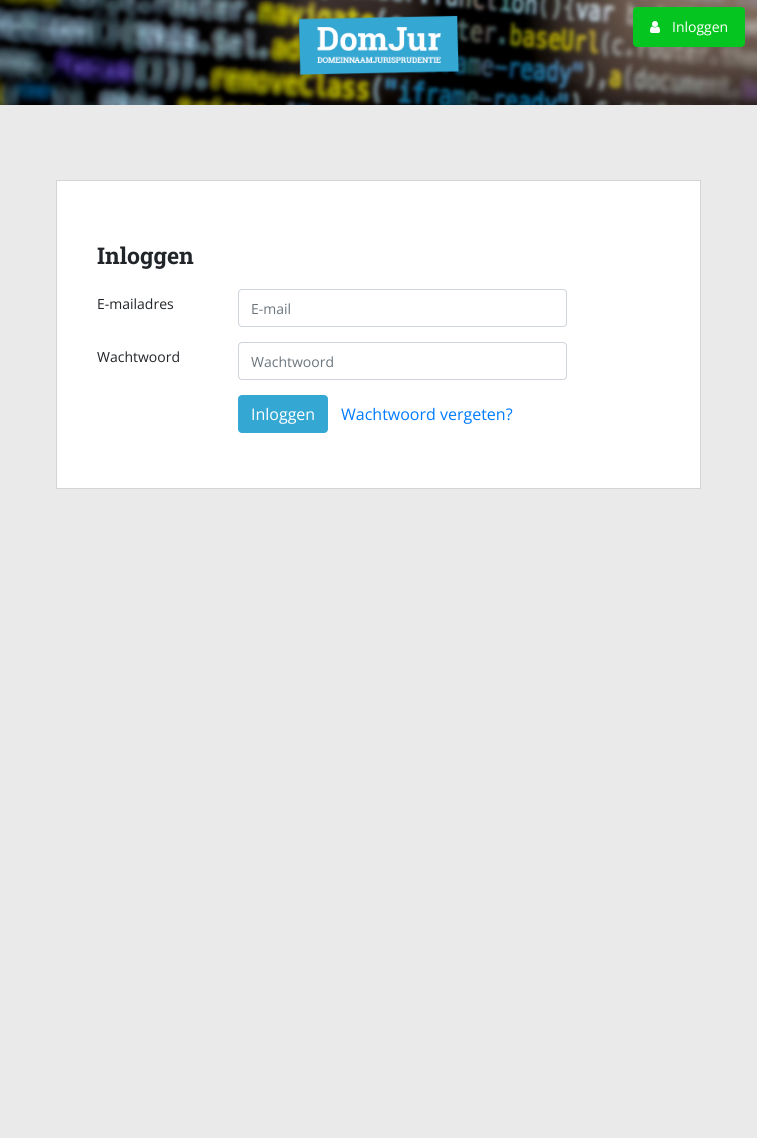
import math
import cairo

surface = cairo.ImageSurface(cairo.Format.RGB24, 757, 1138)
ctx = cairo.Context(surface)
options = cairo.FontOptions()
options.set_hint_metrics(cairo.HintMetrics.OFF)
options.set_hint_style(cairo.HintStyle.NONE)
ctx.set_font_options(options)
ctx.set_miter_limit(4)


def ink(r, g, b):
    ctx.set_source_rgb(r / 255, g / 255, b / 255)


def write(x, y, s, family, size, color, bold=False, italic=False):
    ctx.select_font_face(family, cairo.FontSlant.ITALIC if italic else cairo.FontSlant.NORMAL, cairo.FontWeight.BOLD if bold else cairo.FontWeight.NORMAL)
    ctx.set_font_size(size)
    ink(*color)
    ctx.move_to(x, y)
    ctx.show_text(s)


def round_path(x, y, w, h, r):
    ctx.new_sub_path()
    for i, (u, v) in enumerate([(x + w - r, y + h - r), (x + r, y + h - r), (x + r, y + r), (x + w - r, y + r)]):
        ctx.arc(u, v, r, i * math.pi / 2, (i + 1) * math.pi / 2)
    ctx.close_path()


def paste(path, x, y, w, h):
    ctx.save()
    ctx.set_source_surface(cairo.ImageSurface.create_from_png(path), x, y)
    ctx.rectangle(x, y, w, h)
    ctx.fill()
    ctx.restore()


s1 = dict(family="Open Sans", size=14, color=(255, 255, 255))
s2 = dict(family="Roboto Slab", size=23, color=(33, 37, 41), bold=True)
s3 = dict(family="Open Sans", size=14, color=(33, 37, 41))
s4 = dict(family="Open Sans", size=14, color=(108, 117, 125))
s5 = dict(family="Open Sans", size=16, color=(255, 255, 255))
s6 = dict(family="Open Sans", size=16, color=(0, 123, 255))

ink(234, 234, 234)
ctx.paint()
paste("pic1.png", 0, 0, 757, 105)
paste("pic2.png", 298, 15, 161, 60)
ink(5, 197, 32)
round_path(633.5, 7.5, 111, 39, 3.5)
ctx.fill_preserve()
ctx.set_line_width(1)
ctx.stroke()
paste("pic3.png", 650, 21, 10, 12)
write(672, 32, "Inloggen", **s1)
ctx.rectangle(56.5, 180.5, 644, 308)
ctx.fill_preserve()
ink(212, 212, 212)
ctx.stroke()
write(97, 264, "Inloggen", **s2)
write(97, 309, "E-mailadres", **s3)
round_path(238.5, 289.5, 328, 37, 3.5)
ink(206, 212, 218)
ctx.stroke()
write(251, 314, "E-mail", **s4)
write(97, 362, "Wachtwoord", **s3)
round_path(238.5, 342.5, 328, 37, 3.5)
ink(206, 212, 218)
ctx.stroke()
write(251, 367, "Wachtwoord", **s4)
ink(52, 167, 211)
round_path(238.5, 395.5, 89, 37, 3.5)
ctx.fill_preserve()
ctx.stroke()
write(251, 420, "Inloggen", **s5)
write(341, 420, "Wachtwoord vergeten?", **s6)
surface.write_to_png("screenshot.png")
